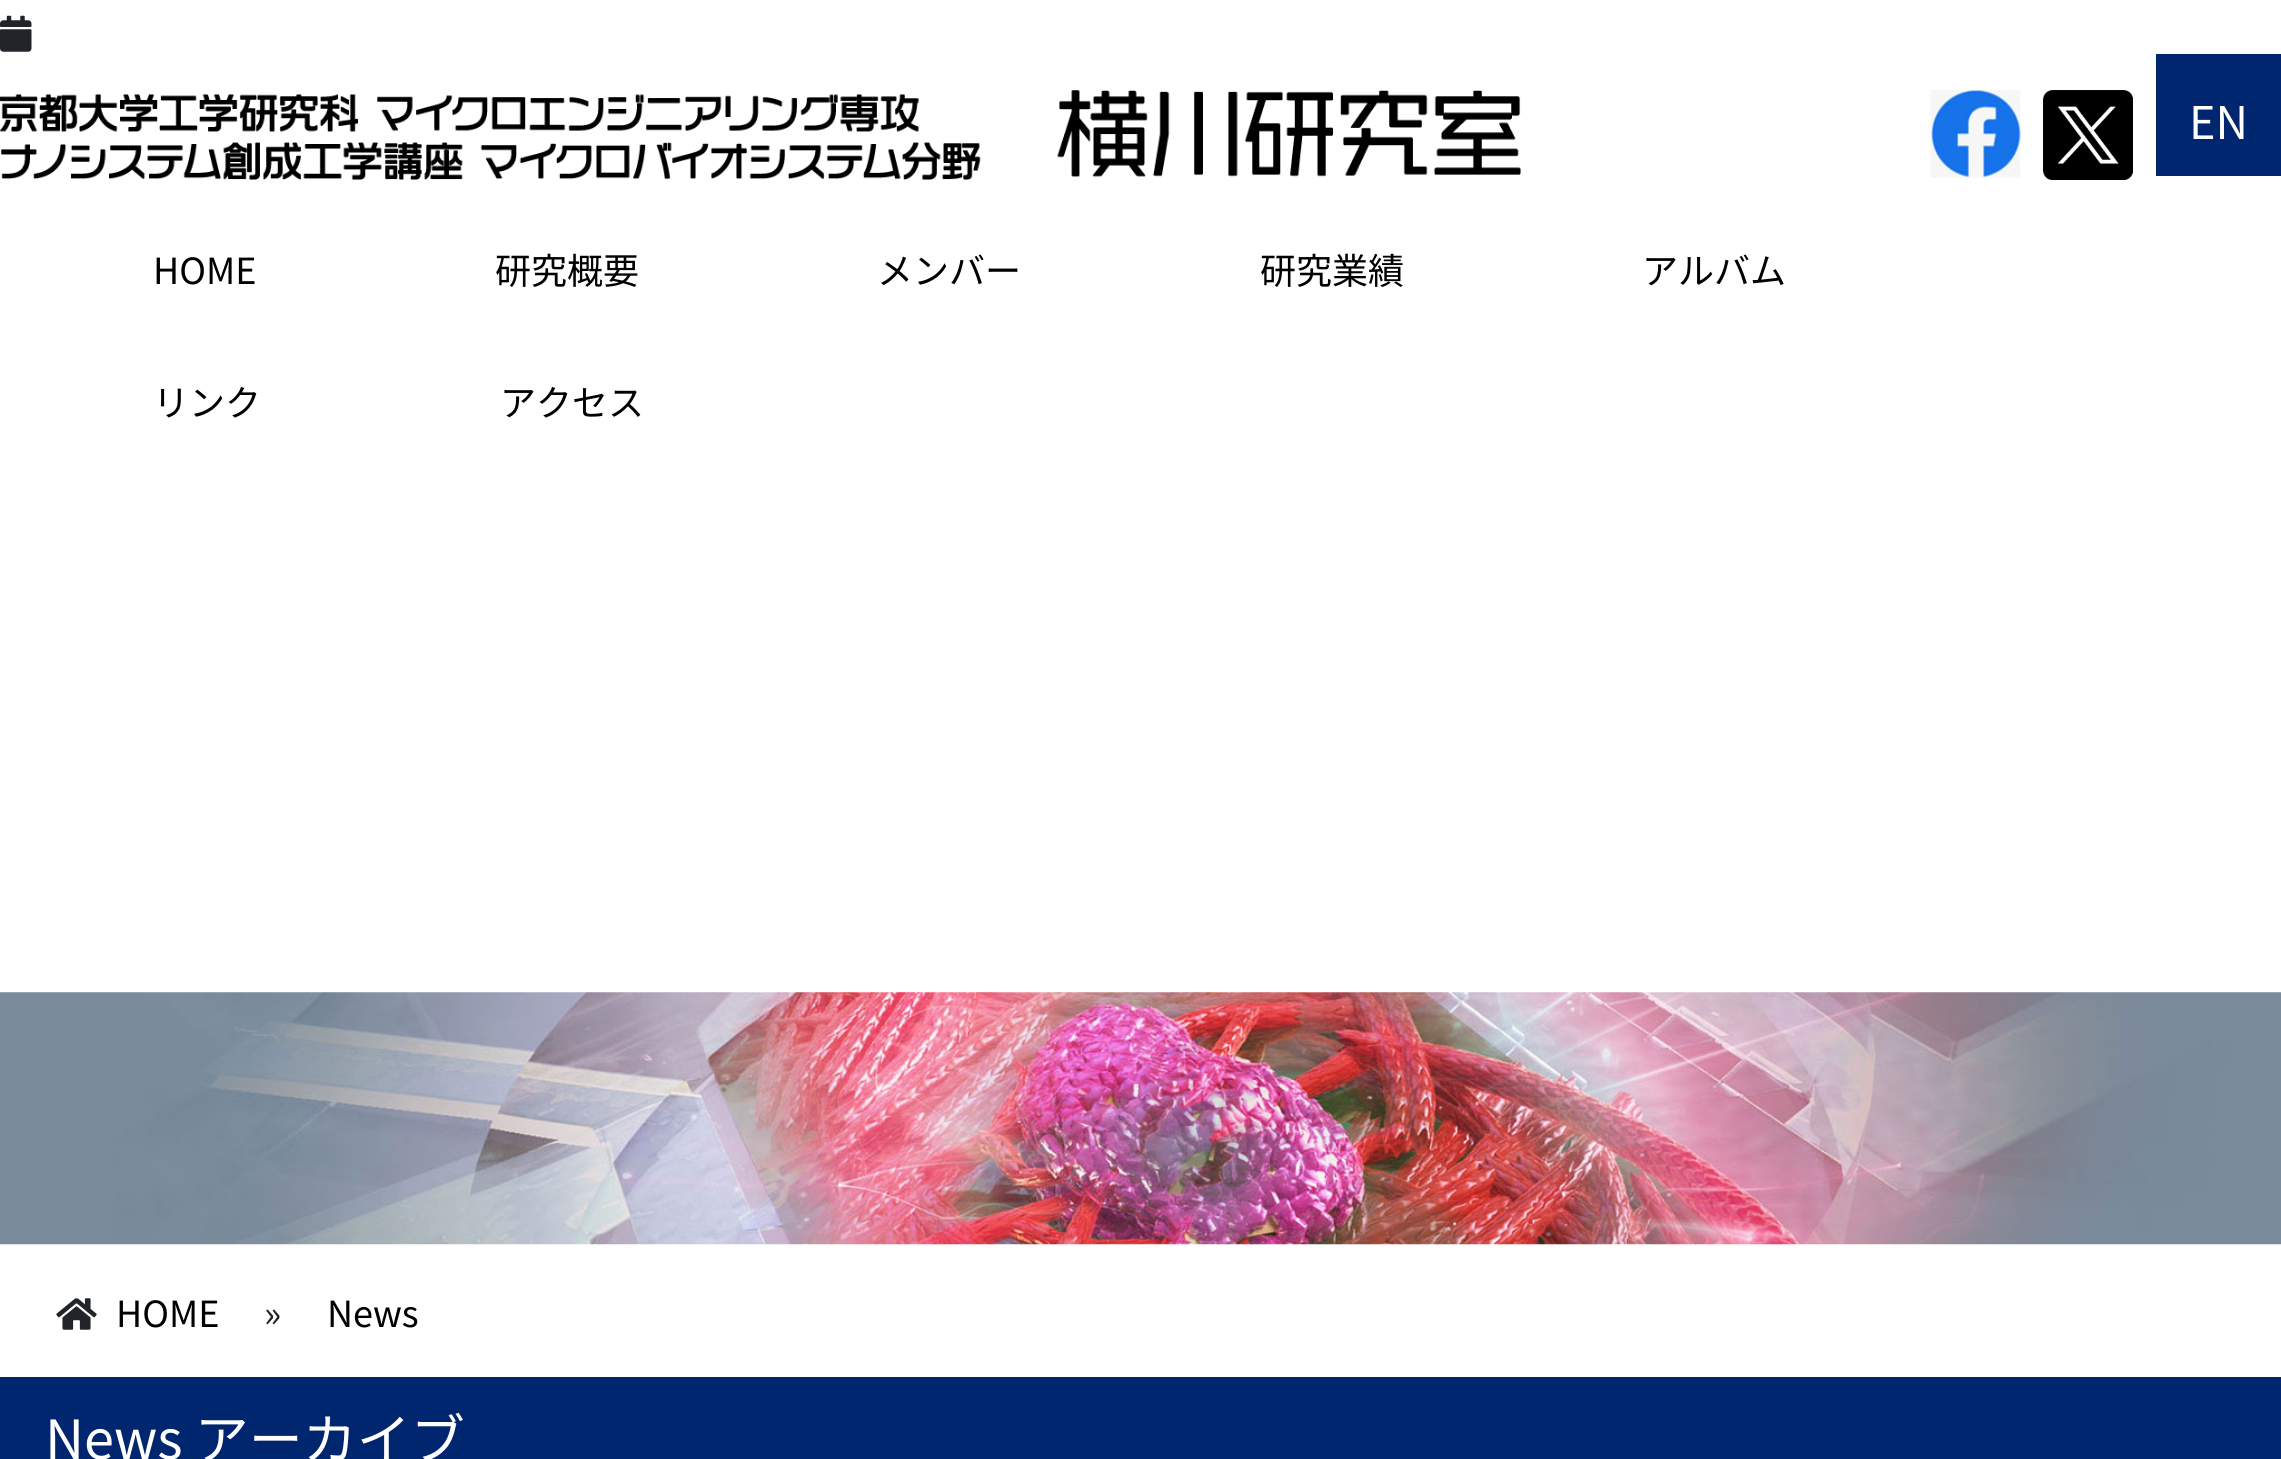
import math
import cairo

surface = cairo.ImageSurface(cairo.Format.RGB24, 2281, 1459)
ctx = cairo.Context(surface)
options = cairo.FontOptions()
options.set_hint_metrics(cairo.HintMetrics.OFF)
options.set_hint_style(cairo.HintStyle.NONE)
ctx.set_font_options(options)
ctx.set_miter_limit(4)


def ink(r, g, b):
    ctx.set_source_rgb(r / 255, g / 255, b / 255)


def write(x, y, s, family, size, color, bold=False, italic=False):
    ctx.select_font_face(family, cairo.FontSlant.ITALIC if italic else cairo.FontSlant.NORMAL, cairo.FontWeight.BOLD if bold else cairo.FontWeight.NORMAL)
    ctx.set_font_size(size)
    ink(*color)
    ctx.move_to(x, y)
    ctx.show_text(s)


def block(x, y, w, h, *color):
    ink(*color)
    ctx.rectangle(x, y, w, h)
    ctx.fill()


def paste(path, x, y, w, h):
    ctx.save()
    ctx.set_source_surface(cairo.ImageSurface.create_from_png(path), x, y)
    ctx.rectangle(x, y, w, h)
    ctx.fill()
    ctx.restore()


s1 = dict(family="Noto Sans JP Thin", size=45, color=(255, 255, 255))
s2 = dict(family="Noto Sans JP Thin", size=36, color=(0, 0, 0))
s3 = dict(family="Noto Sans JP Thin", size=36, color=(33, 37, 41))
s4 = dict(family="Noto Sans JP Thin", size=54, color=(255, 255, 255))

ink(255, 255, 255)
ctx.paint()
paste("pic1.png", 0, 15, 32, 37)
paste("pic2.png", 0, 90, 1521, 90)
paste("pic3.png", 1930, 90, 91, 88)
paste("pic4.png", 2043, 90, 90, 90)
block(2156, 54, 125, 122, 0, 38, 111)
write(2189, 139, "EN", **s1)
write(153, 284, "HOME", **s2)
write(495, 284, "研究概要", **s2)
write(877, 284, "メンバー", **s2)
write(1260, 284, "研究業績", **s2)
write(1642, 284, "アルバム", **s2)
write(153, 416, "リンク", **s2)
write(500, 416, "アクセス", **s2)
paste("pic5.png", 0, 992, 2281, 253)
paste("pic6.png", 56, 1298, 41, 32)
write(116, 1327, "HOME", **s2)
write(264, 1327, "»", **s3)
write(327, 1327, "News", **s2)
block(0, 1377, 2281, 82, 0, 38, 111)
write(45, 1459, "News アーカイブ", **s4)
surface.write_to_png("screenshot.png")
